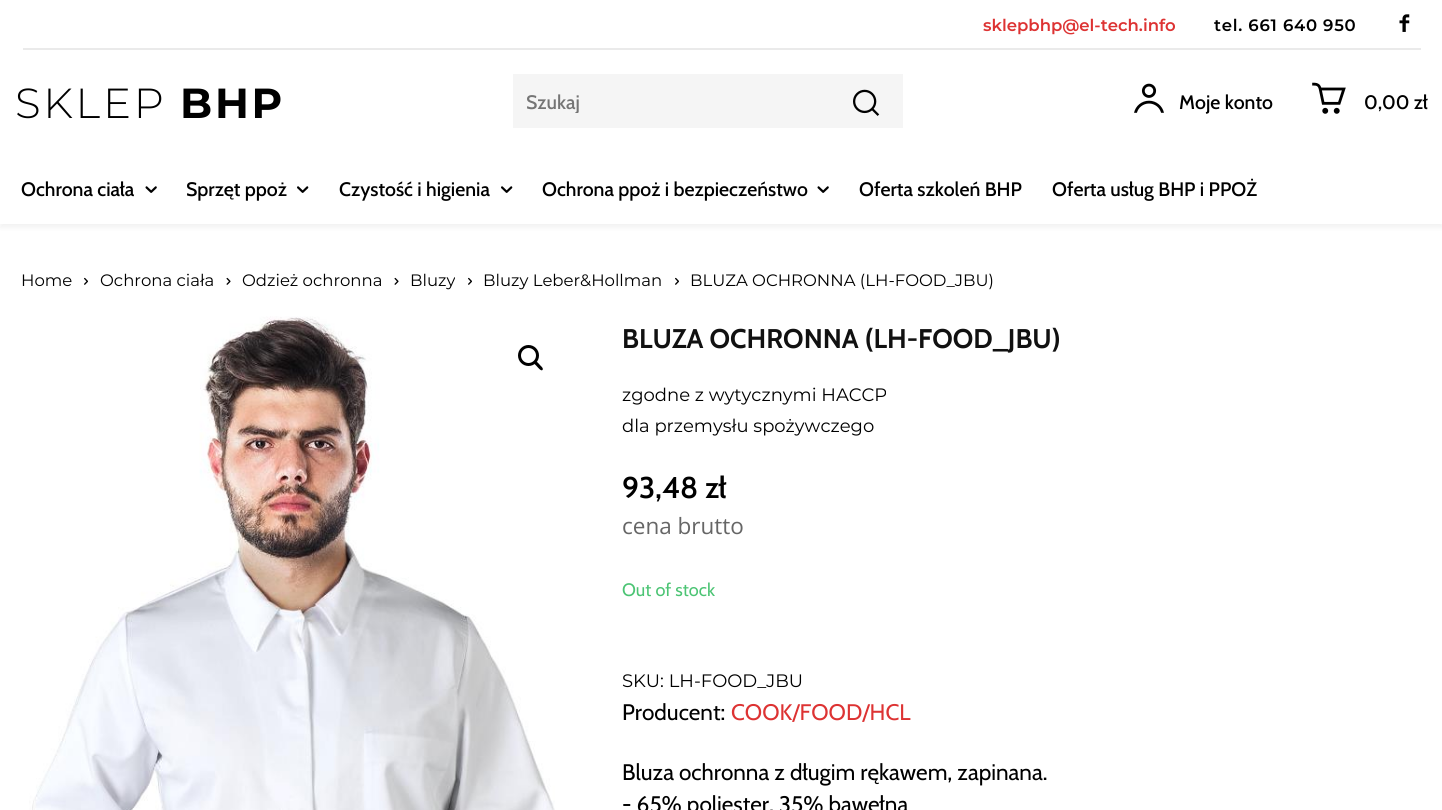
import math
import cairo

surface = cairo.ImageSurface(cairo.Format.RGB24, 1442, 810)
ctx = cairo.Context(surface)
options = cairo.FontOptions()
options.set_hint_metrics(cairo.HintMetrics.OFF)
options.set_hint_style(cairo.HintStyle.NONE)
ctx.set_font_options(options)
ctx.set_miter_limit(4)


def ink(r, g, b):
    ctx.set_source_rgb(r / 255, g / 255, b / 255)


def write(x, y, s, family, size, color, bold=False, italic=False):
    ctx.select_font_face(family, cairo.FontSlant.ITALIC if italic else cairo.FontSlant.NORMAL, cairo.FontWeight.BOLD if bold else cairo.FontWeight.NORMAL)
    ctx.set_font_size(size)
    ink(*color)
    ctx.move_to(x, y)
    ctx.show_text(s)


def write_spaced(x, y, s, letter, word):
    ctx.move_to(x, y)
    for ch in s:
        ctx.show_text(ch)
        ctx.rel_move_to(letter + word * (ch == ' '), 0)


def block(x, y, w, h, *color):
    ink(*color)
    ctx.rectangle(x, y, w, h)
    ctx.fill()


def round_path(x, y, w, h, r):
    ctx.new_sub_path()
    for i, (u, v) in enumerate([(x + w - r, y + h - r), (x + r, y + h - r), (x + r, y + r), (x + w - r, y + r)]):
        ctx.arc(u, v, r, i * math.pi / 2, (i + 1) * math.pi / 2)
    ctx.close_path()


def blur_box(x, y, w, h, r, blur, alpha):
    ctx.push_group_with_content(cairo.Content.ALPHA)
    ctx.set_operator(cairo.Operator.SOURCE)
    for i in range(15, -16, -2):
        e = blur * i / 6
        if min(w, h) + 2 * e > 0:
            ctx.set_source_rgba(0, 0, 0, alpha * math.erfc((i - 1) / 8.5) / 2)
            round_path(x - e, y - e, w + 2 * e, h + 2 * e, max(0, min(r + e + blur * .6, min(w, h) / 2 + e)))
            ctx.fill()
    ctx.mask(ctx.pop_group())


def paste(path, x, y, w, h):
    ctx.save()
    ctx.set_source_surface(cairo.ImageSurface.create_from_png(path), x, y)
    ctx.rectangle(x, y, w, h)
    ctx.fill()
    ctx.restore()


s1 = dict(family="Montserrat SemiBold", size=16.5, color=(221, 51, 51))
s2 = dict(family="Cabin Medium", size=19.5, color=(117, 117, 117))
s3 = dict(family="Cabin Medium", size=19.5, color=(0, 0, 0))
s4 = dict(family="Montserrat", size=16.5, color=(0, 0, 0))
s5 = dict(family="Cabin", size=27, color=(17, 17, 17), bold=True)
s6 = dict(family="Montserrat", size=18, color=(0, 0, 0))
s7 = dict(family="Cabin SemiBold", size=30, color=(0, 0, 0))
s8 = dict(family="Open Sans", size=22.5, color=(102, 102, 102))
s9 = dict(family="Cabin", size=18, color=(76, 196, 116))
s10 = dict(family="Cabin", size=22.5, color=(0, 0, 0))
s11 = dict(family="Cabin", size=22.5, color=(221, 51, 51))

ink(255, 255, 255)
ctx.paint()
write(983, 31, "sklepbhp@el-tech.info", **s1)
ink(0, 0, 0)
write_spaced(1214, 31, "tel. 661 640 950", 0.75, 0)
paste("pic1.png", 1399, 14, 11, 18)
block(23, 48, 1398, 2, 234, 234, 234)
ctx.select_font_face("Montserrat Light")
ctx.set_font_size(42)
ink(0, 0, 0)
write_spaced(15, 118, "SKLEP", 2.75, 0)
ctx.select_font_face("Montserrat", cairo.FontSlant.NORMAL, cairo.FontWeight.BOLD)
write_spaced(180, 118, "BHP", 2.75, 0)
block(513, 74, 390, 54, 245, 245, 245)
ctx.save()
ctx.rectangle(527, 89, 288, 24)
ctx.clip()
write(526, 109, "Szukaj", **s2)
ctx.restore()
paste("pic2.png", 853, 89, 27, 27)
paste("pic3.png", 1134, 83, 30, 30)
write(1179, 109, "Moje konto", **s3)
paste("pic4.png", 1312, 82, 34, 32)
write(1364, 109, "0,00 zł", **s3)
ctx.save()
ctx.set_fill_rule(cairo.FillRule.EVEN_ODD)
ctx.new_path()
ctx.move_to(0, 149)
ctx.line_to(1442, 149)
ctx.line_to(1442, 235)
ctx.line_to(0, 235)
ctx.close_path()
ctx.move_to(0, 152)
ctx.line_to(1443, 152)
ctx.line_to(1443, 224)
ctx.line_to(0, 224)
ctx.close_path()
ctx.clip()
ink(0, 0, 0)
blur_box(0, 156, 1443, 72, 0, 2, 0.05)
ctx.restore()
write(21, 196, "Ochrona ciała", **s3)
paste("pic5.png", 145, 186, 12, 7)
write(186, 196, "Sprzęt ppoż", **s3)
paste("pic6.png", 297, 186, 12, 7)
write(339, 196, "Czystość i higienia", **s3)
paste("pic6.png", 501, 186, 12, 7)
write(542, 196, "Ochrona ppoż i bezpieczeństwo", **s3)
paste("pic5.png", 817, 186, 12, 7)
write(859, 196, "Oferta szkoleń BHP", **s3)
write(1052, 196, "Oferta usług BHP i PPOŻ", **s3)
write(21, 286, "Home", **s4)
paste("pic7.png", 84, 277, 4, 8)
write(100, 286, "Ochrona ciała", **s4)
paste("pic8.png", 226, 277, 5, 8)
write(242, 286, "Odzież ochronna", **s4)
paste("pic8.png", 394, 277, 5, 8)
write(410, 286, "Bluzy", **s4)
paste("pic7.png", 468, 277, 4, 8)
write(483, 286, "Bluzy Leber&Hollman", **s4)
paste("pic7.png", 675, 277, 4, 8)
write(690, 286, "BLUZA OCHRONNA (LH-FOOD_JBU)", **s4)
paste("pic9.png", 29, 316, 526, 494)
ctx.arc(528.5, 355.5, 9, 0, 2 * math.pi)
ctx.set_line_width(3)
ctx.stroke()
ctx.new_path()
ctx.move_to(534, 361.5)
ctx.curve_to(535.5, 359.5, 538.5, 363.5, 539.5, 364.5)
ctx.curve_to(540, 365.5, 544, 368, 542.5, 370)
ctx.curve_to(541, 371.5, 538, 367.5, 537, 366.5)
ctx.curve_to(536.5, 365.5, 532.5, 363, 534, 361.5)
ctx.close_path()
ctx.fill()
write(622, 348, "BLUZA OCHRONNA (LH-FOOD_JBU)", **s5)
write(622, 401, "zgodne z wytycznymi HACCP", **s6)
write(622, 432, "dla przemysłu spożywczego", **s6)
write(622, 498, "93,48 zł", **s7)
write(622, 534, "cena brutto", **s8)
write(622, 596, "Out of stock", **s9)
write(622, 687, "SKU: LH-FOOD_JBU", **s6)
write(622, 720, "Producent:", **s10)
write(731, 720, "COOK/FOOD/HCL", **s11)
write(622, 780, "Bluza ochronna z długim rękawem, zapinana.", **s10)
write(622, 812, "- 65% poliester, 35% bawełna", **s10)
surface.write_to_png("screenshot.png")
